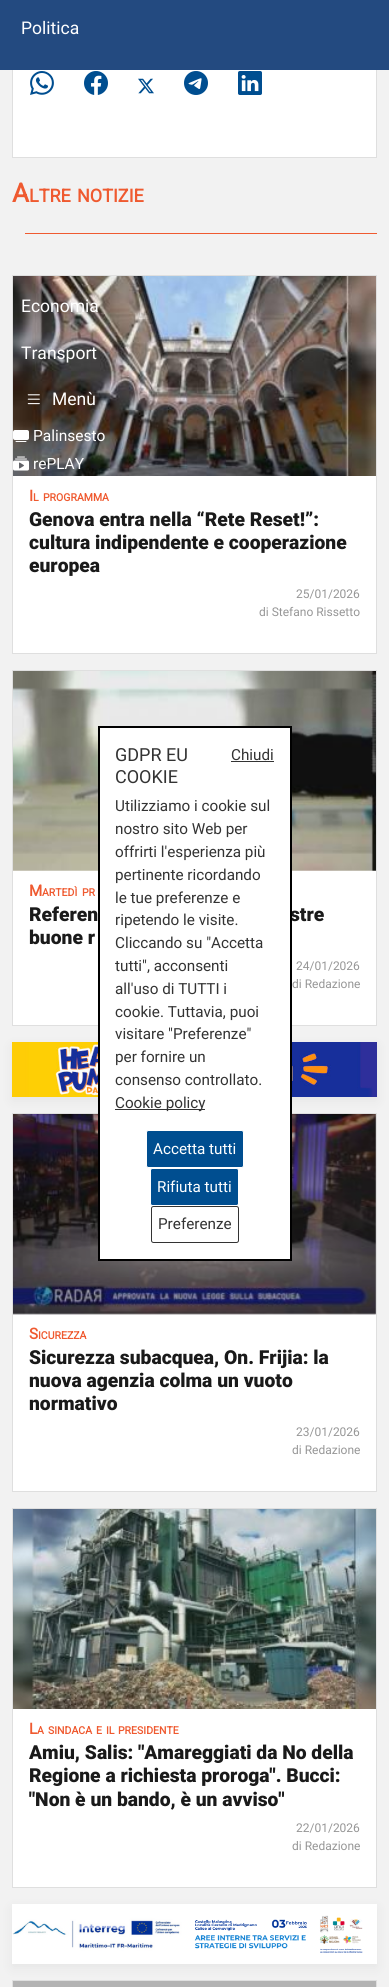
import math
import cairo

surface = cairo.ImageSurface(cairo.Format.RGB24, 389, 1987)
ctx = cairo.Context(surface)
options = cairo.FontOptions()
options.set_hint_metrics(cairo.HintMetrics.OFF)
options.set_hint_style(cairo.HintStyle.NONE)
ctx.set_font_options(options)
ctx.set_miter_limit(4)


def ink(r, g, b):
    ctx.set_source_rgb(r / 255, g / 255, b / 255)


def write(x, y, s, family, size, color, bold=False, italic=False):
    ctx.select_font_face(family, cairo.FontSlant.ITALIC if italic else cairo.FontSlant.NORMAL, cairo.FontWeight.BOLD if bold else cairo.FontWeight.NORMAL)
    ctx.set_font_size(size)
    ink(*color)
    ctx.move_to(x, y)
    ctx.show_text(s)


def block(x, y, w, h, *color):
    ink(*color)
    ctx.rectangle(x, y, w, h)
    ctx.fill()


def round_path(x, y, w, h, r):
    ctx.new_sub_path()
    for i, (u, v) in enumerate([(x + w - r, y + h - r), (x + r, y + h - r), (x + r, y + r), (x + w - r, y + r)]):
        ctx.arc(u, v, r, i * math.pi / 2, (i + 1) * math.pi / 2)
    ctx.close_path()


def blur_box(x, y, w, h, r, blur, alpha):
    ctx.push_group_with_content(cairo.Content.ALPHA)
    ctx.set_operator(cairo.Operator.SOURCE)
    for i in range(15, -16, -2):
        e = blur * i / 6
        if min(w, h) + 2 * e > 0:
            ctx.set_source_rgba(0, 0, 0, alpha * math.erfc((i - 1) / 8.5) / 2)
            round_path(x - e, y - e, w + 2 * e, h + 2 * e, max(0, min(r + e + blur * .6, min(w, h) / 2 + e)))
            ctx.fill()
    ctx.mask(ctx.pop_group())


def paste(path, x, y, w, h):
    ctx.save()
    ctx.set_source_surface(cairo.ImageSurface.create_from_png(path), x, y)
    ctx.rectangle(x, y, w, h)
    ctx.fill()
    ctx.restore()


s1 = dict(family="Roboto", size=17.5, color=(255, 255, 255))
s2 = dict(family="Roboto", size=15.5, color=(255, 255, 255))
s3 = dict(family="Roboto", size=26, color=(239, 90, 48), bold=True)
s4 = dict(family="Roboto", size=18, color=(239, 90, 48), bold=True)
s5 = dict(family="Roboto", size=15.25, color=(239, 90, 48), bold=True)
s6 = dict(family="Roboto", size=10.5, color=(239, 90, 48), bold=True)
s7 = dict(family="Roboto Black", size=19.25, color=(26, 26, 26))
s8 = dict(family="Roboto", size=12, color=(150, 150, 150))
s9 = dict(family="Roboto", size=18, color=(51, 51, 51))
s10 = dict(family="Roboto", size=15.25, color=(51, 51, 51))
s11 = dict(family="Roboto", size=15.25, color=(255, 255, 255))

ink(242, 242, 242)
ctx.paint()
block(13, 70, 363, 87, 255, 255, 255)
ctx.rectangle(12.5, -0.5, 364, 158)
ink(223, 223, 223)
ctx.set_line_width(1)
ctx.stroke()
block(0, 0, 389, 70, 35, 74, 128)
write(21, 34, "Politica", **s1)
block(13, 476, 363, 177, 255, 255, 255)
ctx.rectangle(12.5, 275.5, 364, 378)
ink(223, 223, 223)
ctx.stroke()
paste("pic9.png", 13, 276, 363, 200)
write(21, 312, "Economia", **s1)
write(21, 359, "Transport", **s1)
paste("pic1.png", 27, 394, 13, 11)
write(52, 405, "Menù", **s1)
paste("pic2.png", 13, 430, 16, 12)
write(33, 441, "Palinsesto", **s2)
paste("pic3.png", 13, 456, 16, 15)
write(33, 469, "rePLAY", **s2)
paste("pic4.png", 30, 71, 24, 24)
paste("pic5.png", 84, 71, 24, 24)
paste("pic6.png", 138, 78, 16, 16)
paste("pic7.png", 184, 71, 24, 24)
paste("pic8.png", 238, 71, 24, 24)
write(12, 202, "A", **s3)
write(29, 202, "LTRE", **s4)
write(77, 202, "NOTIZIE", **s4)
block(25, 233, 352, 1, 239, 90, 48)
write(29, 501, "I", **s5)
write(33, 501, "L", **s6)
write(43, 501, "PROGRAMMA", **s6)
write(29, 526, "Genova entra nella “Rete Reset!”:", **s7)
write(29, 549, "cultura indipendente e cooperazione", **s7)
write(29, 572, "europea", **s7)
write(296, 598, "25/01/2026", **s8)
write(259, 616, "di Stefano Rissetto", **s8)
block(13, 870, 363, 155, 255, 255, 255)
ctx.rectangle(12.5, 670.5, 364, 355)
ink(223, 223, 223)
ctx.stroke()
paste("pic10.png", 13, 671, 363, 200)
write(29, 896, "M", **s5)
write(42, 896, "ARTEDÌ", **s6)
write(82, 896, "PR", **s6)
write(29, 921, "Referen", **s7)
write(290, 921, "stre", **s7)
write(29, 944, "buone r", **s7)
write(296, 970, "24/01/2026", **s8)
write(292, 988, "di Redazione", **s8)
ink(0, 0, 0)
blur_box(12, 1046, 365, 55, 0, 6, 0.05)
paste("pic11.png", 12, 1042, 365, 55)
block(13, 1314, 363, 177, 255, 255, 255)
block(13, 1114, 363, 200, 179, 179, 179)
ctx.rectangle(12.5, 1113.5, 364, 378)
ink(223, 223, 223)
ctx.stroke()
paste("pic12.png", 13, 1114, 363, 201)
write(29, 1339, "S", **s5)
write(38, 1339, "ICUREZZA", **s6)
write(29, 1364, "Sicurezza subacquea, On. Frijia: la", **s7)
write(29, 1387, "nuova agenzia colma un vuoto", **s7)
write(29, 1410, "normativo", **s7)
write(296, 1436, "23/01/2026", **s8)
write(292, 1454, "di Redazione", **s8)
block(13, 1709, 363, 178, 255, 255, 255)
ctx.rectangle(12.5, 1508.5, 364, 379)
ink(223, 223, 223)
ctx.stroke()
paste("pic13.png", 13, 1509, 363, 200)
write(29, 1734, "L", **s5)
write(37, 1734, "A", **s6)
write(48, 1734, "SINDACA", **s6)
write(96, 1734, "E", **s6)
write(106, 1734, "IL", **s6)
write(118, 1734, "PRESIDENTE", **s6)
write(29, 1759, "Amiu, Salis: \"Amareggiati da No della", **s7)
write(29, 1782, "Regione a richiesta proroga\". Bucci:", **s7)
write(29, 1806, "\"Non è un bando, è un avviso\"", **s7)
write(296, 1832, "22/01/2026", **s8)
write(292, 1850, "di Redazione", **s8)
ink(0, 0, 0)
blur_box(12, 1908, 365, 60, 0, 6, 0.05)
paste("pic14.png", 12, 1904, 365, 60)
ctx.rectangle(12.5, 1980.5, 364, 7)
ink(223, 223, 223)
ctx.stroke()
block(13, 1981, 363, 6, 179, 179, 179)
ink(255, 255, 255)
ctx.rectangle(99, 727, 192, 533)
ctx.fill_preserve()
ink(0, 0, 0)
ctx.set_line_width(2)
ctx.stroke()
write(115, 761, "GDPR EU", **s9)
write(115, 783, "COOKIE", **s9)
write(231, 760, "Chiudi", **s10)
block(231, 761, 43, 1, 51, 51, 51)
write(115, 811, "Utilizziamo i cookie sul", **s10)
write(115, 834, "nostro sito Web per", **s10)
write(115, 857, "offrirti l'esperienza più", **s10)
write(115, 880, "pertinente ricordando", **s10)
write(115, 903, "le tue preferenze e", **s10)
write(115, 925, "ripetendo le visite.", **s10)
write(115, 948, "Cliccando su \"Accetta", **s10)
write(115, 971, "tutti\", acconsenti", **s10)
write(115, 994, "all'uso di TUTTI i", **s10)
write(115, 1017, "cookie. Tuttavia, puoi", **s10)
write(115, 1039, "visitare \"Preferenze\"", **s10)
write(115, 1062, "per fornire un", **s10)
write(115, 1085, "consenso controllato.", **s10)
block(115, 1109, 90, 1, 51, 51, 51)
write(115, 1108, "Cookie policy", **s10)
ink(0, 78, 144)
round_path(146.5, 1130.5, 97, 37, 2)
ctx.fill_preserve()
ink(255, 255, 255)
ctx.set_line_width(1)
ctx.stroke()
write(153, 1154, "Accetta tutti", **s11)
ink(0, 78, 144)
round_path(150.5, 1168.5, 88, 37, 2)
ctx.fill_preserve()
ink(255, 255, 255)
ctx.stroke()
write(157, 1192, "Rifiuta tutti", **s11)
round_path(151.5, 1206.5, 87, 36, 2)
ink(51, 51, 51)
ctx.stroke()
write(158, 1229, "Preferenze", **s10)
surface.write_to_png("screenshot.png")
